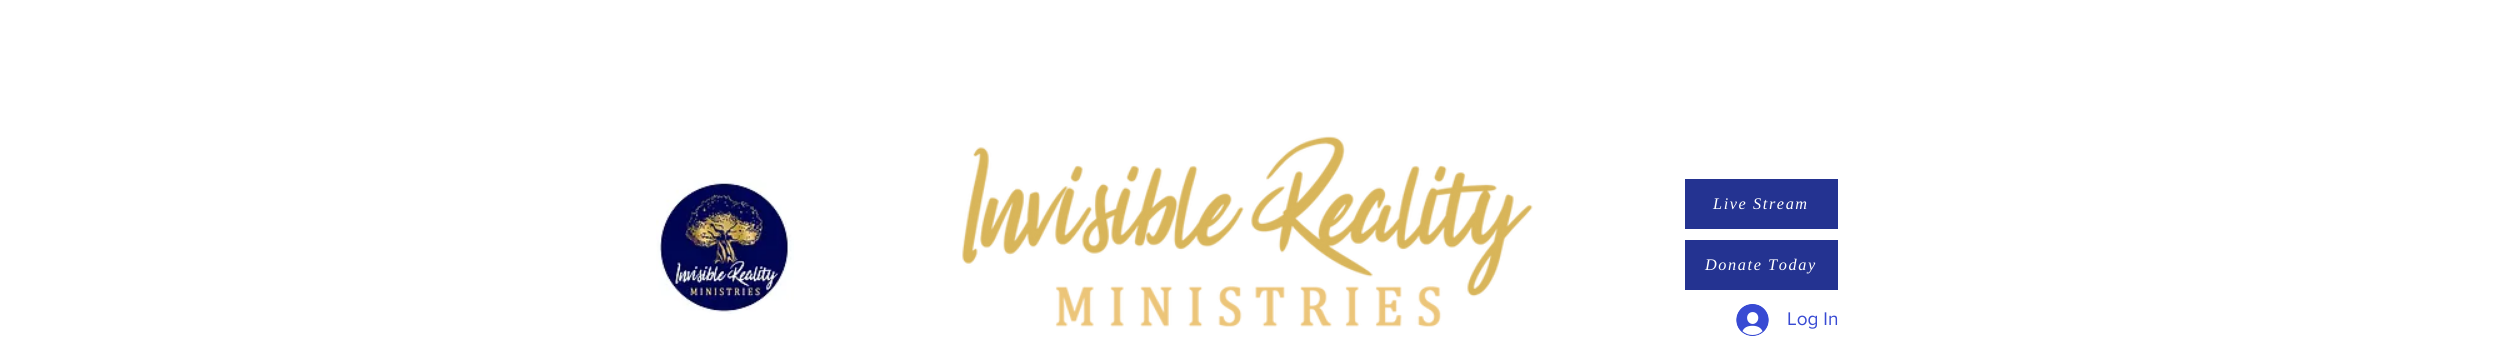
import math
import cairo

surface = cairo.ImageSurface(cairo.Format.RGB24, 2502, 345)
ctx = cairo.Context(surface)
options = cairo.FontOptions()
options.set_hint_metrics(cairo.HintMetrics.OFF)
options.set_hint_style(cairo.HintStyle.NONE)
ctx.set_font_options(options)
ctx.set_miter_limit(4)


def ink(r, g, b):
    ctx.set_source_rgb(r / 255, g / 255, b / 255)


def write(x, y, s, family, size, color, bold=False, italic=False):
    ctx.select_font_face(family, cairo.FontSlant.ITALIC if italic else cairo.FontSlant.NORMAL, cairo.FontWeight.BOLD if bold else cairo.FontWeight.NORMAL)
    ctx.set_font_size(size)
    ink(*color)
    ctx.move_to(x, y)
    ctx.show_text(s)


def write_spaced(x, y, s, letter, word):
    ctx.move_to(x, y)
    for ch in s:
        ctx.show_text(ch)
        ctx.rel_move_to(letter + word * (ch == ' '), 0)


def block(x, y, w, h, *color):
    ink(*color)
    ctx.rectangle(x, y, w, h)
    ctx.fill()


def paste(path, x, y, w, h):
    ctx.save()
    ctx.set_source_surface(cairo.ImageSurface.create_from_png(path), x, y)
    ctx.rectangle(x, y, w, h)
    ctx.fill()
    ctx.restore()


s1 = dict(family="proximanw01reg", size=19, color=(56, 74, 211))

ink(255, 255, 255)
ctx.paint()
paste("pic1.png", 656, 180, 138, 134)
paste("pic2.png", 962, 136, 571, 191)
block(1685, 179, 153, 50, 36, 51, 145)
ctx.select_font_face("Liberation Serif", cairo.FontSlant.ITALIC)
ctx.set_font_size(16.25)
ink(255, 255, 255)
write_spaced(1713, 209, "Live Stream", 1.6, 0)
block(1685, 240, 153, 50, 36, 51, 145)
ink(255, 255, 255)
write_spaced(1705, 270, "Donate Today", 1.6, 0)
paste("pic3.png", 1736, 304, 33, 32)
write(1787, 325, "Log In", **s1)
surface.write_to_png("screenshot.png")
